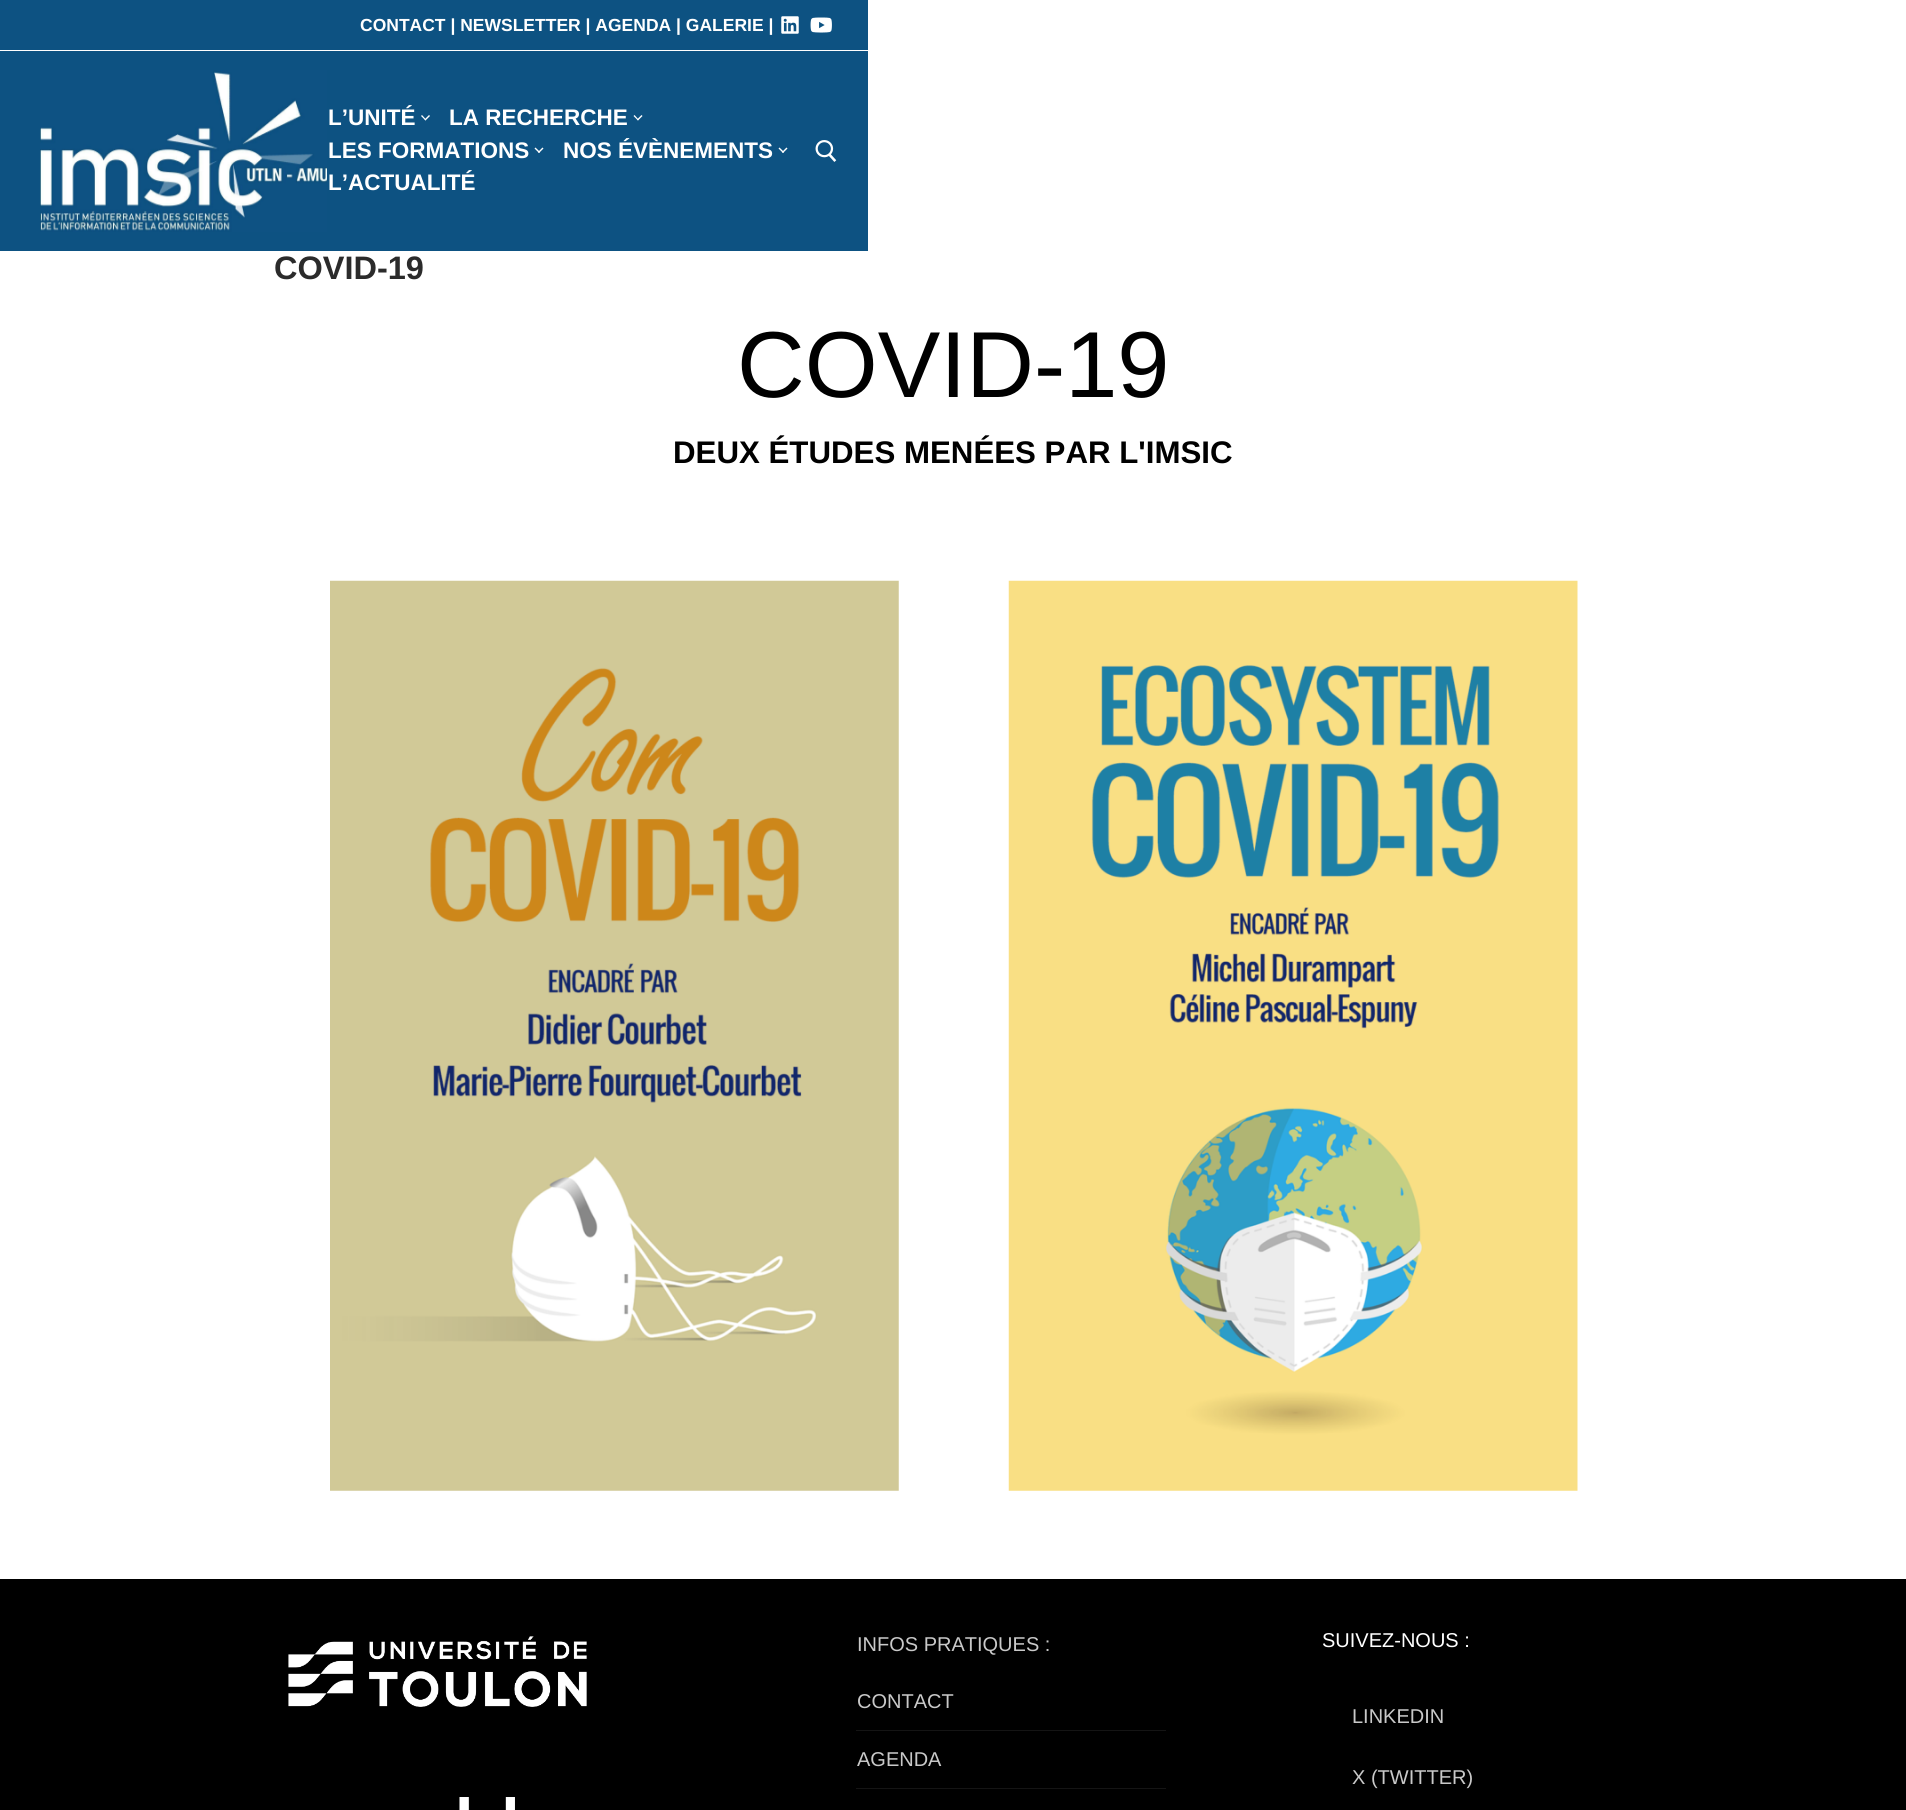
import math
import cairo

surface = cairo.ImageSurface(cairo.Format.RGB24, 1906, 1810)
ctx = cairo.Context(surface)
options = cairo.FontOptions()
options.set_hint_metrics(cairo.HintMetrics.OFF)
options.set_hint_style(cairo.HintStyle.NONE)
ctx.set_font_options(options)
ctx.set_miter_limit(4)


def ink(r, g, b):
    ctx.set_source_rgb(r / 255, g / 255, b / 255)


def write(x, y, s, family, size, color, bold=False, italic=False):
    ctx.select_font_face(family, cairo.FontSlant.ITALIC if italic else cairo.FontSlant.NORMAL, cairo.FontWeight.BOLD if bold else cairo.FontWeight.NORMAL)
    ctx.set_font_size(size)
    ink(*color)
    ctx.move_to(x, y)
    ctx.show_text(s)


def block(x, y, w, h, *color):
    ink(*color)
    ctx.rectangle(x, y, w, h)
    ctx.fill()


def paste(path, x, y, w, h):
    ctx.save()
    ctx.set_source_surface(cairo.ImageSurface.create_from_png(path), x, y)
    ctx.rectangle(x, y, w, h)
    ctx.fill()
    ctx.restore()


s1 = dict(family="Liberation Sans", size=17.5, color=(255, 255, 255), bold=True)
s2 = dict(family="Liberation Sans", size=22.5, color=(255, 255, 255), bold=True)
s3 = dict(family="Liberation Sans", size=32.5, color=(43, 43, 43), bold=True)
s4 = dict(family="Liberation Sans", size=93.75, color=(0, 0, 0))
s5 = dict(family="Liberation Sans", size=31.25, color=(0, 0, 0), bold=True)
s6 = dict(family="Liberation Sans", size=20, color=(201, 201, 201))
s7 = dict(family="Liberation Sans", size=20, color=(255, 255, 255))

ink(255, 255, 255)
ctx.paint()
block(0, 0, 868, 50, 13, 82, 130)
write(360, 31, "CONTACT | NEWSLETTER | AGENDA | GALERIE |", **s1)
paste("pic1.png", 781, 16, 18, 18)
paste("pic2.png", 810, 17, 22, 16)
block(0, 51, 868, 200, 13, 82, 130)
paste("pic3.png", 40, 70, 287, 162)
write(328, 125, "L’UNITÉ", **s2)
ctx.new_path()
ctx.move_to(425.5, 120.5)
ctx.line_to(421, 116)
ctx.line_to(422, 115)
ctx.line_to(426, 119.5)
ctx.close_path()
ctx.fill()
ctx.new_path()
ctx.move_to(425.5, 120.5)
ctx.line_to(424.5, 119.5)
ctx.line_to(429, 115)
ctx.line_to(430, 116)
ctx.close_path()
ctx.fill()
write(449, 125, "LA RECHERCHE", **s2)
ctx.new_path()
ctx.move_to(638, 120.5)
ctx.line_to(633.5, 116)
ctx.line_to(634.5, 115)
ctx.line_to(638.5, 119.5)
ctx.close_path()
ctx.fill()
ctx.new_path()
ctx.move_to(638, 120.5)
ctx.line_to(637, 119.5)
ctx.line_to(641.5, 115)
ctx.line_to(642.5, 116)
ctx.close_path()
ctx.fill()
write(328, 158, "LES FORMATIONS", **s2)
ctx.new_path()
ctx.move_to(539, 153)
ctx.line_to(534.5, 148.5)
ctx.line_to(535.5, 147.5)
ctx.line_to(540, 152)
ctx.close_path()
ctx.fill()
ctx.new_path()
ctx.move_to(539, 153)
ctx.line_to(538, 152)
ctx.line_to(542.5, 147.5)
ctx.line_to(543.5, 148.5)
ctx.close_path()
ctx.fill()
write(563, 158, "NOS ÉVÈNEMENTS", **s2)
ctx.new_path()
ctx.move_to(783, 153)
ctx.line_to(778.5, 148.5)
ctx.line_to(779.5, 147.5)
ctx.line_to(784, 152)
ctx.close_path()
ctx.fill()
ctx.new_path()
ctx.move_to(783, 153)
ctx.line_to(782, 152)
ctx.line_to(786.5, 147.5)
ctx.line_to(787.5, 148.5)
ctx.close_path()
ctx.fill()
write(328, 190, "L’ACTUALITÉ", **s2)
paste("pic4.png", 815, 140, 22, 22)
write(274, 279, "COVID-19", **s3)
write(737, 397, "COVID-19", **s4)
write(673, 463, "DEUX ÉTUDES MENÉES PAR L'IMSIC", **s5)
paste("pic5.png", 330, 580, 569, 911)
paste("pic6.png", 1008, 580, 570, 911)
block(0, 1579, 1906, 231, 0, 0, 0)
paste("pic7.png", 288, 1636, 299, 71)
paste("pic8.png", 459, 1797, 56, 13)
write(857, 1651, "INFOS PRATIQUES :", **s6)
block(856, 1730, 310, 1, 20, 20, 20)
write(857, 1708, "CONTACT", **s6)
block(856, 1788, 310, 1, 20, 20, 20)
write(857, 1766, "AGENDA", **s6)
write(1322, 1647, "SUIVEZ-NOUS :", **s7)
write(1352, 1723, "LINKEDIN", **s6)
write(1352, 1784, "X (TWITTER)", **s6)
surface.write_to_png("screenshot.png")
